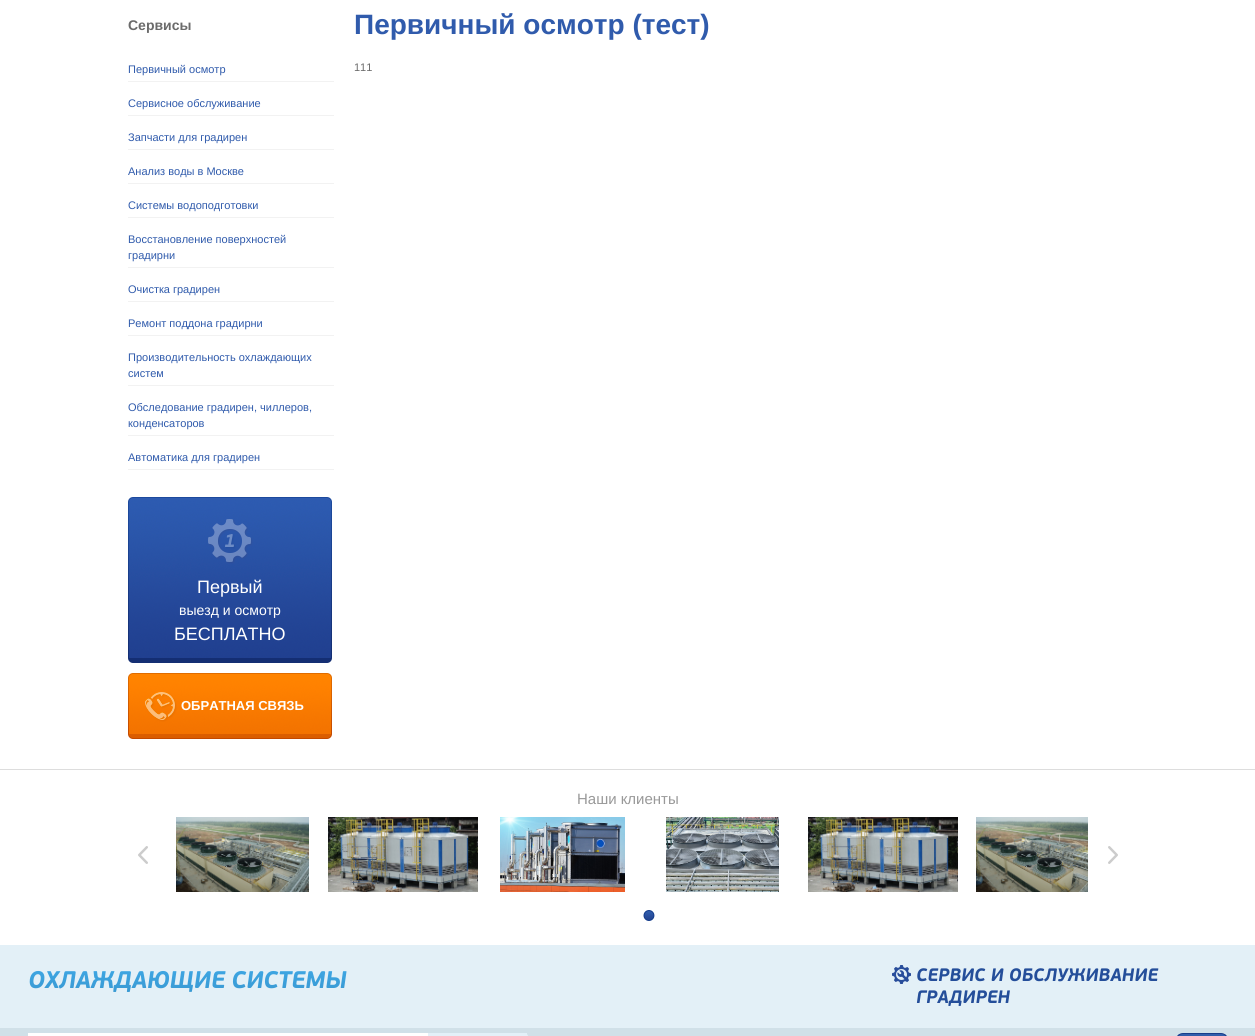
import math
import cairo

surface = cairo.ImageSurface(cairo.Format.RGB24, 1255, 1036)
ctx = cairo.Context(surface)
options = cairo.FontOptions()
options.set_hint_metrics(cairo.HintMetrics.OFF)
options.set_hint_style(cairo.HintStyle.NONE)
ctx.set_font_options(options)
ctx.set_miter_limit(4)


def ink(r, g, b):
    ctx.set_source_rgb(r / 255, g / 255, b / 255)


def write(x, y, s, family, size, color, bold=False, italic=False):
    ctx.select_font_face(family, cairo.FontSlant.ITALIC if italic else cairo.FontSlant.NORMAL, cairo.FontWeight.BOLD if bold else cairo.FontWeight.NORMAL)
    ctx.set_font_size(size)
    ink(*color)
    ctx.move_to(x, y)
    ctx.show_text(s)


def write_spaced(x, y, s, letter, word):
    ctx.move_to(x, y)
    for ch in s:
        ctx.show_text(ch)
        ctx.rel_move_to(letter + word * (ch == ' '), 0)


def block(x, y, w, h, *color):
    ink(*color)
    ctx.rectangle(x, y, w, h)
    ctx.fill()


def round_path(x, y, w, h, r):
    ctx.new_sub_path()
    for i, (u, v) in enumerate([(x + w - r, y + h - r), (x + r, y + h - r), (x + r, y + r), (x + w - r, y + r)]):
        ctx.arc(u, v, r, i * math.pi / 2, (i + 1) * math.pi / 2)
    ctx.close_path()


def paste(path, x, y, w, h):
    ctx.save()
    ctx.set_source_surface(cairo.ImageSurface.create_from_png(path), x, y)
    ctx.rectangle(x, y, w, h)
    ctx.fill()
    ctx.restore()


s1 = dict(family="Liberation Sans", size=14, color=(107, 107, 107), bold=True)
s2 = dict(family="Arimo", size=11, color=(48, 91, 172))
s3 = dict(family="Arimo", size=18, color=(255, 255, 255))
s4 = dict(family="Arimo", size=14, color=(255, 255, 255))
s5 = dict(family="Arimo", size=13, color=(255, 255, 255), bold=True)
s6 = dict(family="Arimo", size=28, color=(48, 91, 172), bold=True)
s7 = dict(family="Arimo", size=11, color=(107, 107, 107))
s8 = dict(family="Arimo", size=15, color=(153, 153, 153))
s9 = dict(family="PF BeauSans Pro", size=18, color=(36, 78, 154), bold=True, italic=True)

ink(255, 255, 255)
ctx.paint()
write(128, 30, "Сервисы", **s1)
block(128, 81, 206, 1, 242, 242, 242)
write(128, 73, "Первичный осмотр", **s2)
block(128, 115, 206, 1, 242, 242, 242)
write(128, 107, "Сервисное обслуживание", **s2)
block(128, 149, 206, 1, 242, 242, 242)
write(128, 141, "Запчасти для градирен", **s2)
block(128, 183, 206, 1, 242, 242, 242)
write(128, 175, "Анализ воды в Москве", **s2)
block(128, 217, 206, 1, 242, 242, 242)
write(128, 209, "Системы водоподготовки", **s2)
block(128, 267, 206, 1, 242, 242, 242)
write(128, 243, "Восстановление поверхностей", **s2)
write(128, 259, "градирни", **s2)
block(128, 301, 206, 1, 242, 242, 242)
write(128, 293, "Очистка градирен", **s2)
block(128, 335, 206, 1, 242, 242, 242)
write(128, 327, "Ремонт поддона градирни", **s2)
block(128, 385, 206, 1, 242, 242, 242)
write(128, 361, "Производительность охлаждающих", **s2)
write(128, 377, "систем", **s2)
block(128, 435, 206, 1, 242, 242, 242)
write(128, 411, "Обследование градирен, чиллеров,", **s2)
write(128, 427, "конденсаторов", **s2)
block(128, 469, 206, 1, 242, 242, 242)
write(128, 461, "Автоматика для градирен", **s2)
paste("pic1.png", 128, 497, 204, 166)
write(197, 593, "Первый", **s3)
write(179, 615, "выезд и осмотр", **s4)
write(174, 640, "БЕСПЛАТНО", **s3)
paste("pic2.png", 128, 673, 204, 66)
write(181, 710, "ОБРАТНАЯ СВЯЗЬ", **s5)
write(354, 34, "Первичный осмотр (тест)", **s6)
write(354, 71, "111", **s7)
block(0, 769, 1255, 1, 221, 221, 221)
write(577, 804, "Наши клиенты", **s8)
paste("pic3.png", 176, 817, 133, 75)
paste("pic4.png", 328, 817, 150, 75)
paste("pic5.png", 500, 817, 125, 75)
paste("pic6.png", 666, 817, 113, 75)
paste("pic7.png", 808, 817, 150, 75)
paste("pic8.png", 976, 817, 112, 75)
paste("pic9.png", 138, 846, 10, 18)
paste("pic10.png", 1108, 846, 10, 18)
paste("pic11.png", 643, 910, 12, 11)
block(0, 945, 1255, 83, 227, 240, 247)
ctx.select_font_face("PF BeauSans Pro", cairo.FontSlant.ITALIC, cairo.FontWeight.BOLD)
ctx.set_font_size(24)
gradient = cairo.LinearGradient(187, 965, 187, 996)
gradient.add_color_stop_rgba(0, 0.243, 0.659, 0.902, 1)
gradient.add_color_stop_rgba(1, 0.224, 0.596, 0.816, 1)
ctx.set_source(gradient)
write_spaced(28, 988, "ОХЛАЖДАЮЩИЕ CИСТЕМЫ", -0.25, 0)
paste("pic12.png", 892, 965, 19, 19)
write(916, 981, "СЕРВИС И ОБСЛУЖИВАНИЕ", **s9)
write(916, 1003, "ГРАДИРЕН", **s9)
block(0, 1028, 1255, 8, 208, 224, 232)
block(28, 1033, 400, 3, 255, 255, 255)
block(428, 1033, 99, 3, 227, 240, 248)
ctx.new_path()
ctx.move_to(527, 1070)
ctx.line_to(527, 1034)
ctx.line_to(537, 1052)
ctx.close_path()
ctx.fill()
ctx.save()
round_path(1176, 1033, 52, 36, 7)
ctx.clip()
gradient = cairo.LinearGradient(1202, 1034, 1202, 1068)
gradient.add_color_stop_rgba(0, 0.196, 0.369, 0.671, 1)
gradient.add_color_stop_rgba(1, 0.086, 0.243, 0.537, 1)
ctx.set_source(gradient)
ctx.rectangle(1176, 1034, 52, 2)
ctx.fill()
ctx.restore()
round_path(1176.5, 1033.5, 51, 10, 6.5)
ink(24, 61, 138)
ctx.set_line_width(1)
ctx.stroke()
surface.write_to_png("screenshot.png")
